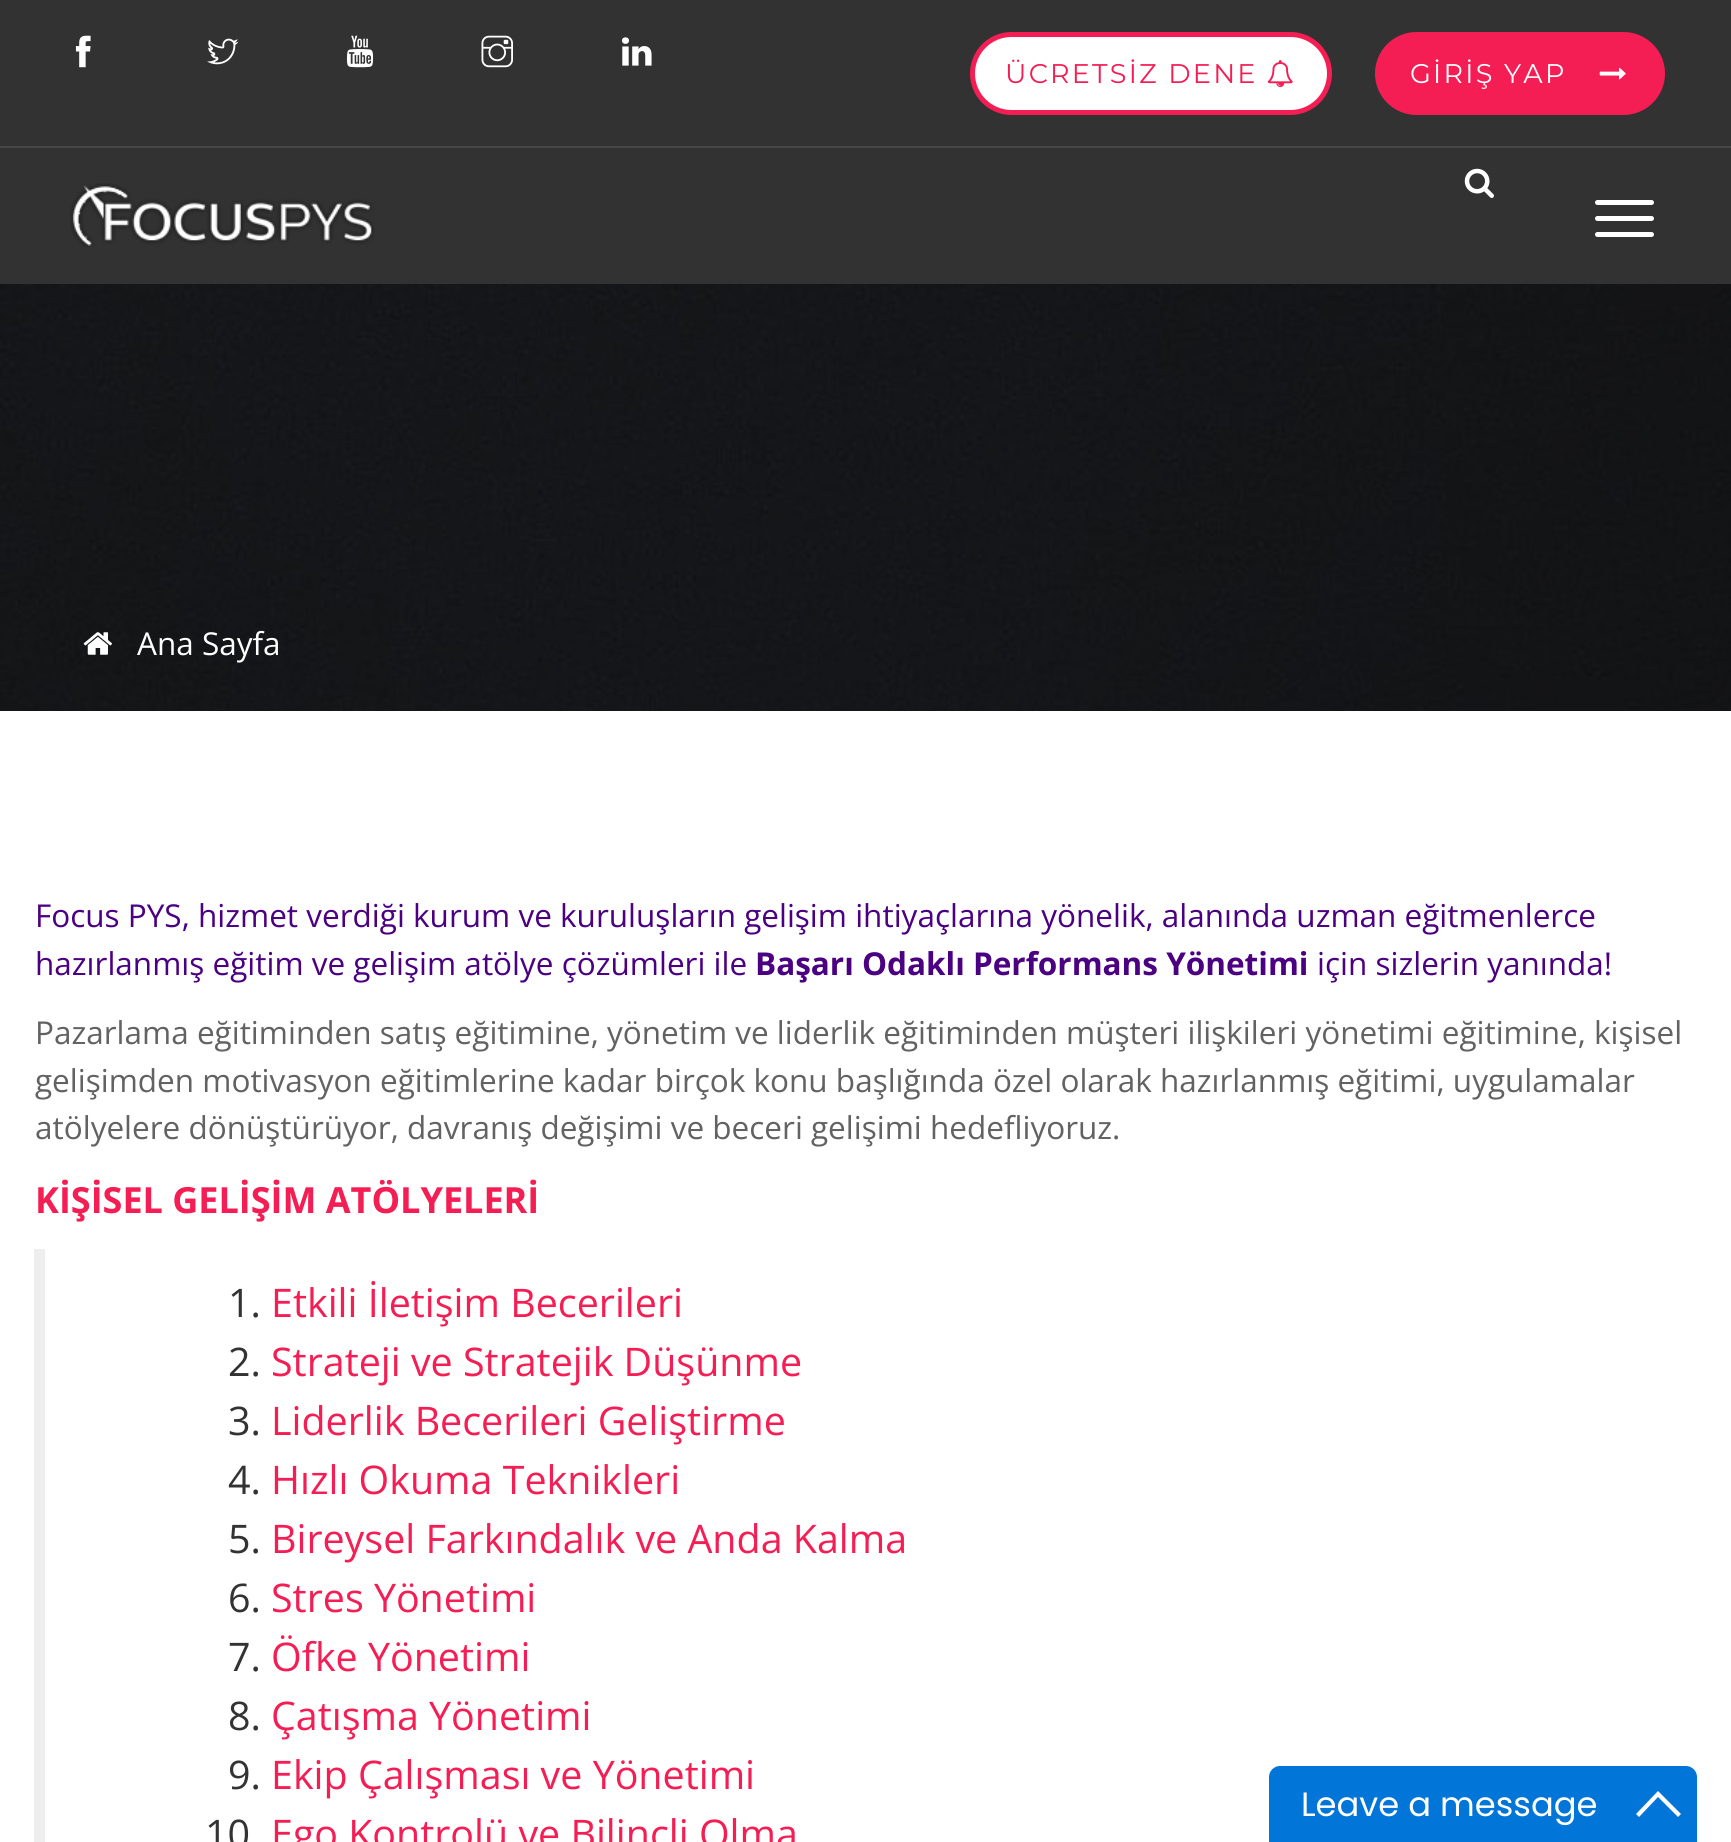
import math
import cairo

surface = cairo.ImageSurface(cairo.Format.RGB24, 1731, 1842)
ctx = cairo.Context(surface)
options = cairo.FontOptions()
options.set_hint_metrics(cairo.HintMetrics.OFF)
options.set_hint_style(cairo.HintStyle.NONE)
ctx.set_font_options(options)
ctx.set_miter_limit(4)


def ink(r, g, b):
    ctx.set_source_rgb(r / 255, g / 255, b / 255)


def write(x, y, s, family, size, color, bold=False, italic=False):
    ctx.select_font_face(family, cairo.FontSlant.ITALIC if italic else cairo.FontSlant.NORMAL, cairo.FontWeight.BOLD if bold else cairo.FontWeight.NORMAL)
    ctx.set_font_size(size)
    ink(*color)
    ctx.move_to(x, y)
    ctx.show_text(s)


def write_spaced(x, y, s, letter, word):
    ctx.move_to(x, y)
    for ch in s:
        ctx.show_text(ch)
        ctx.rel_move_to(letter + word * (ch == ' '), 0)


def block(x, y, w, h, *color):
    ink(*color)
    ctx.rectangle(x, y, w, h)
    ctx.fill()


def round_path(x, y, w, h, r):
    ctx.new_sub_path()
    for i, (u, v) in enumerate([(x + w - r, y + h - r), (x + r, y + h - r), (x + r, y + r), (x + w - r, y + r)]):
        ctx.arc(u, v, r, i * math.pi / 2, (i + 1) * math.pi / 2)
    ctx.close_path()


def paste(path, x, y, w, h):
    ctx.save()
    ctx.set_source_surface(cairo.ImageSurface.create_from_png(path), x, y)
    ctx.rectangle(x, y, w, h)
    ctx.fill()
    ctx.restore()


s1 = dict(family="Open Sans", size=31.5, color=(255, 255, 255))
s2 = dict(family="Open Sans", size=31.5, color=(75, 0, 130))
s3 = dict(family="Open Sans", size=31.5, color=(75, 0, 130), bold=True)
s4 = dict(family="Open Sans", size=31.5, color=(98, 98, 98))
s5 = dict(family="Open Sans", size=36, color=(244, 30, 84), bold=True)
s6 = dict(family="Open Sans", size=39.4, color=(51, 51, 51))
s7 = dict(family="Open Sans", size=39.4, color=(244, 30, 84))
s8 = dict(family="Poppins", size=33.75, color=(255, 255, 255))

ink(255, 255, 255)
ctx.paint()
block(0, 0, 1731, 284, 50, 50, 50)
block(0, 146, 1731, 2, 71, 71, 71)
paste("pic1.png", 75, 35, 16, 33)
paste("pic2.png", 207, 38, 32, 27)
paste("pic3.png", 346, 35, 28, 33)
paste("pic4.png", 481, 35, 32, 33)
paste("pic5.png", 621, 37, 31, 29)
ink(255, 255, 255)
round_path(972.5, 34.5, 357, 78, 39)
ctx.fill_preserve()
ink(244, 30, 84)
ctx.set_line_width(5)
ctx.stroke()
ctx.select_font_face("Montserrat")
ctx.set_font_size(27)
write_spaced(1005, 83, "ÜCRETSİZ DENE", 2.25, 0)
paste("pic6.png", 1267, 60, 26, 28)
round_path(1377.5, 34.5, 285, 78, 39)
ctx.fill_preserve()
ctx.stroke()
ink(255, 255, 255)
write_spaced(1410, 83, "GİRİŞ YAP", 2.25, 0)
paste("pic7.png", 1599, 67, 27, 13)
paste("pic8.png", 1464, 168, 30, 30)
paste("pic9.png", 70, 183, 304, 64)
round_path(1595, 200, 59, 5, 2.5)
ctx.fill()
round_path(1595, 216, 59, 5, 2.5)
ctx.fill()
round_path(1595, 232, 59, 5, 2.5)
ctx.fill()
paste("pic10.png", 0, 284, 1731, 427)
paste("pic11.png", 83, 632, 29, 23)
write(137, 655, "Ana Sayfa", **s1)
write(35, 927, "Focus PYS, hizmet verdiği kurum ve kuruluşların gelişim ihtiyaçlarına yönelik, alanında uzman eğitmenlerce", **s2)
write(35, 975, "hazırlanmış eğitim ve gelişim atölye çözümleri ile", **s2)
write(755, 975, "Başarı Odaklı Performans Yönetimi", **s3)
write(1317, 975, "için sizlerin yanında!", **s2)
write(35, 1044, "Pazarlama eğitiminden satış eğitimine, yönetim ve liderlik eğitiminden müşteri ilişkileri yönetimi eğitimine, kişisel", **s4)
write(35, 1092, "gelişimden motivasyon eğitimlerine kadar birçok konu başlığında özel olarak hazırlanmış eğitimi, uygulamalar", **s4)
write(35, 1139, "atölyelere dönüştürüyor, davranış değişimi ve beceri gelişimi hedefliyoruz.", **s4)
write(35, 1213, "KİŞİSEL GELİŞİM ATÖLYELERİ", **s5)
block(34, 1249, 11, 593, 238, 238, 238)
write(228, 1317, "1.", **s6)
write(271, 1317, "Etkili İletişim Becerileri", **s7)
write(228, 1376, "2.", **s6)
write(271, 1376, "Strateji ve Stratejik Düşünme", **s7)
write(228, 1435, "3.", **s6)
write(271, 1435, "Liderlik Becerileri Geliştirme", **s7)
write(228, 1494, "4.", **s6)
write(271, 1494, "Hızlı Okuma Teknikleri", **s7)
write(228, 1553, "5.", **s6)
write(271, 1553, "Bireysel Farkındalık ve Anda Kalma", **s7)
write(228, 1612, "6.", **s6)
write(271, 1612, "Stres Yönetimi", **s7)
write(228, 1671, "7.", **s6)
write(271, 1671, "Öfke Yönetimi", **s7)
write(228, 1730, "8.", **s6)
write(271, 1730, "Çatışma Yönetimi", **s7)
write(228, 1789, "9.", **s6)
write(271, 1789, "Ekip Çalışması ve Yönetimi", **s7)
write(205, 1848, "10", **s6)
write(271, 1848, "Ego Kontrolü ve Bilinçli Olma", **s7)
ink(2, 117, 216)
ctx.new_path()
ctx.move_to(1280, 1766)
ctx.line_to(1686, 1766)
ctx.curve_to(1692, 1766, 1697, 1771, 1697, 1777)
ctx.line_to(1697, 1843)
ctx.line_to(1269, 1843)
ctx.line_to(1269, 1777)
ctx.curve_to(1269, 1771, 1274, 1766, 1280, 1766)
ctx.close_path()
ctx.fill()
write(1301, 1816, "Leave a message", **s8)
ctx.new_path()
ctx.move_to(1658, 1791)
ctx.line_to(1681, 1814)
ctx.line_to(1678, 1817)
ctx.line_to(1658, 1797)
ctx.line_to(1639, 1817)
ctx.line_to(1636, 1814)
ctx.close_path()
ctx.fill()
surface.write_to_png("screenshot.png")
